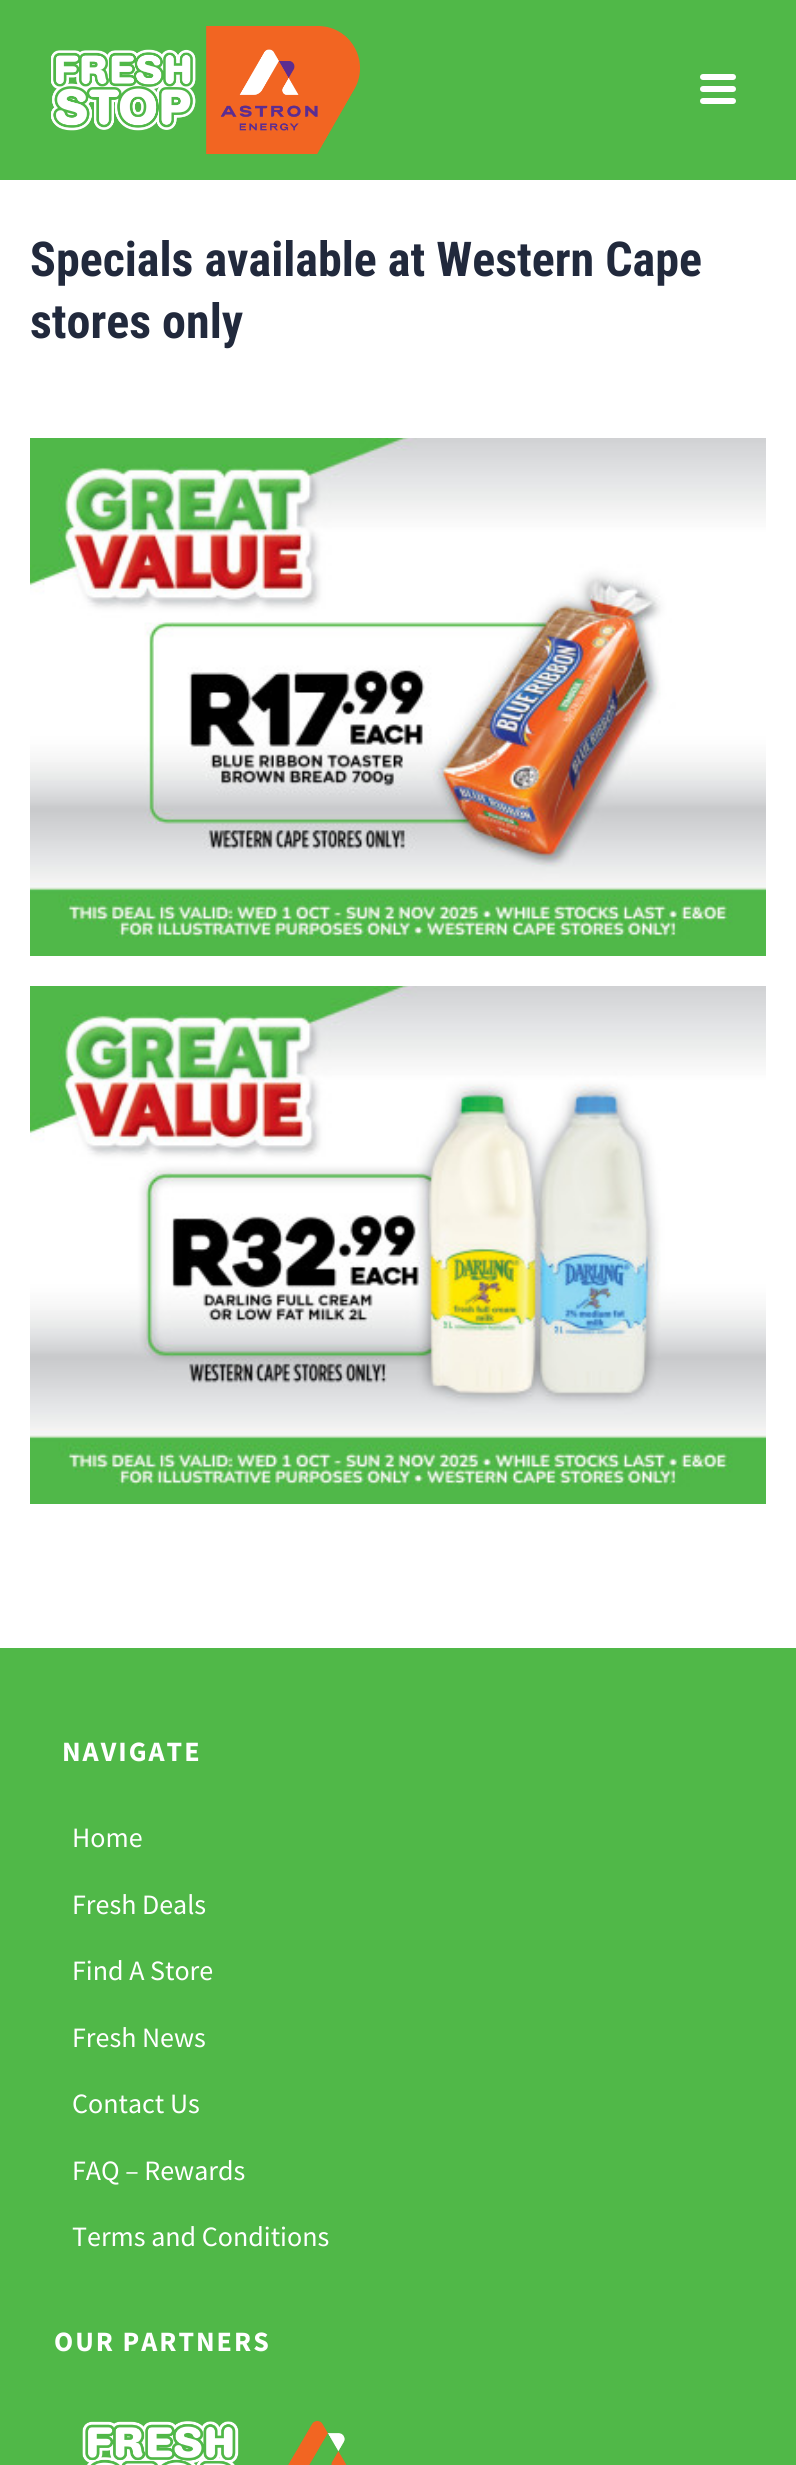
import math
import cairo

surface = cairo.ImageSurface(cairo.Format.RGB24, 796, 2465)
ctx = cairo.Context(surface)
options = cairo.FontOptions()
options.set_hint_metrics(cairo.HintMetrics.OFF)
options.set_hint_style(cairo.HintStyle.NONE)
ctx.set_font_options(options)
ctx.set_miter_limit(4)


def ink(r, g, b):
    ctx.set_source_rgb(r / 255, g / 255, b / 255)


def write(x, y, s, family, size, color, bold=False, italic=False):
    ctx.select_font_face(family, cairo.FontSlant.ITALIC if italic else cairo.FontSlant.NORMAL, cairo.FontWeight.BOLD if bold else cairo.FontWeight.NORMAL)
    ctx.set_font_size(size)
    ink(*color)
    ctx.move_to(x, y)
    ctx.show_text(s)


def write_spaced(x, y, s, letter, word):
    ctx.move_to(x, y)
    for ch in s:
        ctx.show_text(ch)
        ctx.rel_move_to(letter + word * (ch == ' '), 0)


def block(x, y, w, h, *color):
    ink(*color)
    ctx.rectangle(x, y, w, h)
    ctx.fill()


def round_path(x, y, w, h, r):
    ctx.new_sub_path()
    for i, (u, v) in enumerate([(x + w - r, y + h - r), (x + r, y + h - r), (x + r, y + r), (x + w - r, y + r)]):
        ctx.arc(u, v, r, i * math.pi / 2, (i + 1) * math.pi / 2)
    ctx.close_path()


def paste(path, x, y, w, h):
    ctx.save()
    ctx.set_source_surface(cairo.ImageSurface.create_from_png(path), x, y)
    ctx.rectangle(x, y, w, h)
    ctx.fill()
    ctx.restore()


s1 = dict(family="Roboto Condensed", size=48, color=(33, 41, 60), bold=True)
s2 = dict(family="Source Sans Pro", size=28, color=(255, 255, 255))

ink(80, 184, 72)
ctx.paint()
paste("pic1.png", 51, 26, 309, 128)
ink(255, 255, 255)
round_path(700, 74, 36, 6, 3)
ctx.fill()
round_path(700, 86, 36, 6, 3)
ctx.fill()
round_path(700, 98, 36, 6, 3)
ctx.fill()
block(0, 180, 796, 1468, 255, 255, 255)
write(30, 276, "Specials available at Western Cape", **s1)
write(30, 338, "stores only", **s1)
paste("pic2.png", 30, 438, 736, 518)
paste("pic3.png", 30, 986, 736, 518)
ctx.select_font_face("Source Sans Pro", cairo.FontSlant.NORMAL, cairo.FontWeight.BOLD)
ctx.set_font_size(28)
ink(255, 255, 255)
write_spaced(62, 1761, "NAVIGATE", 2, 0)
write(72, 1847, "Home", **s2)
write(72, 1914, "Fresh Deals", **s2)
write(72, 1980, "Find A Store", **s2)
write(72, 2047, "Fresh News", **s2)
write(72, 2113, "Contact Us", **s2)
write(72, 2180, "FAQ – Rewards", **s2)
write(72, 2246, "Terms and Conditions", **s2)
ctx.select_font_face("Source Sans Pro", cairo.FontSlant.NORMAL, cairo.FontWeight.BOLD)
write_spaced(54, 2351, "OUR PARTNERS", 2, 0)
paste("pic4.png", 82, 2421, 265, 44)
surface.write_to_png("screenshot.png")
